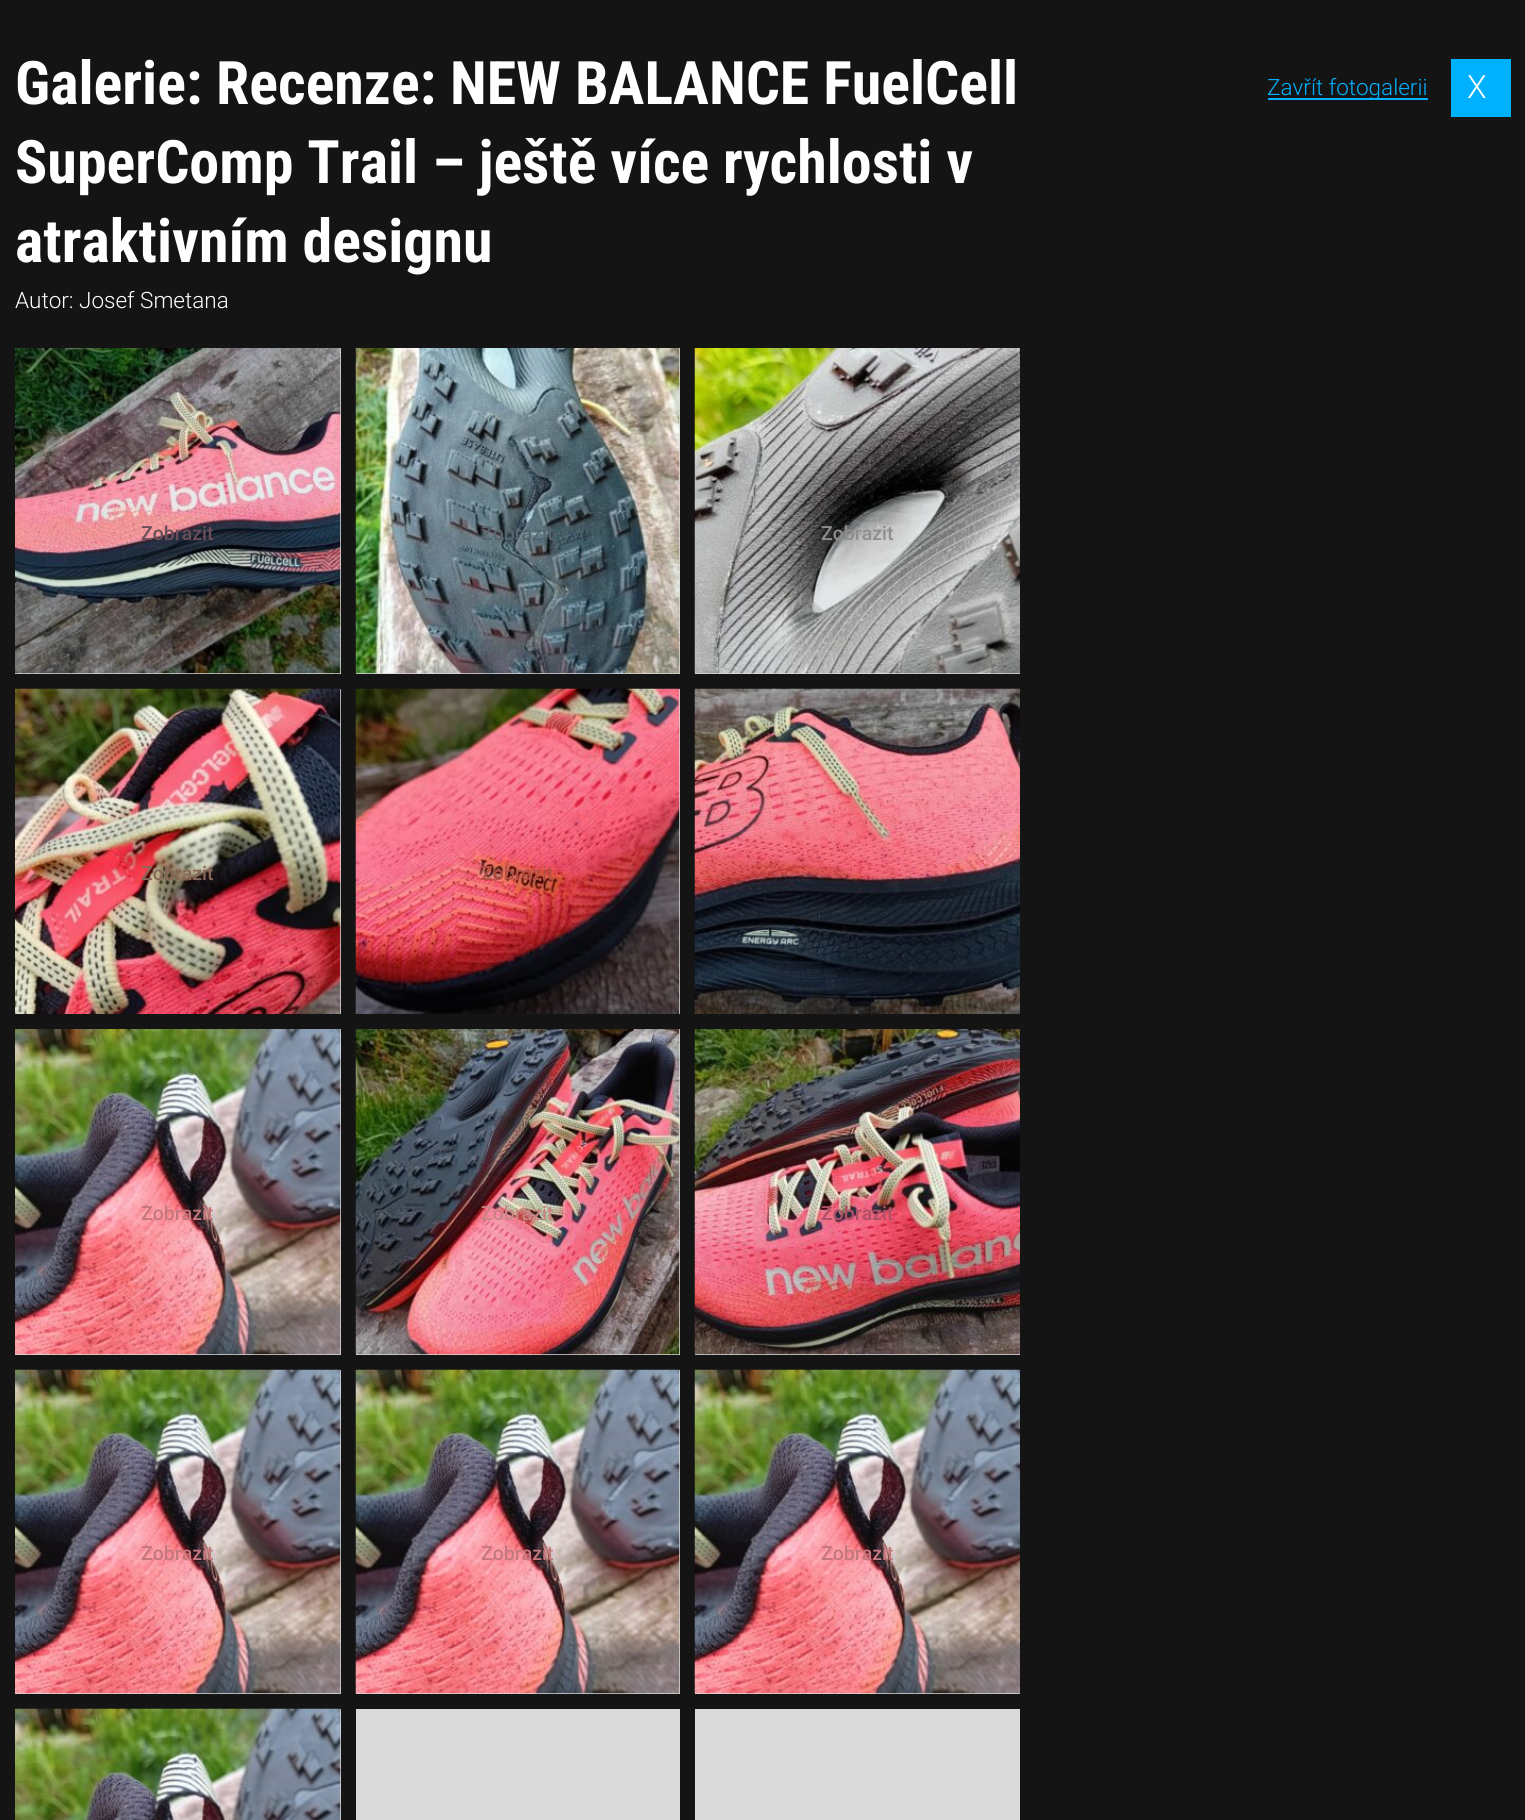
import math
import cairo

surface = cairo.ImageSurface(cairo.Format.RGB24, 1525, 1820)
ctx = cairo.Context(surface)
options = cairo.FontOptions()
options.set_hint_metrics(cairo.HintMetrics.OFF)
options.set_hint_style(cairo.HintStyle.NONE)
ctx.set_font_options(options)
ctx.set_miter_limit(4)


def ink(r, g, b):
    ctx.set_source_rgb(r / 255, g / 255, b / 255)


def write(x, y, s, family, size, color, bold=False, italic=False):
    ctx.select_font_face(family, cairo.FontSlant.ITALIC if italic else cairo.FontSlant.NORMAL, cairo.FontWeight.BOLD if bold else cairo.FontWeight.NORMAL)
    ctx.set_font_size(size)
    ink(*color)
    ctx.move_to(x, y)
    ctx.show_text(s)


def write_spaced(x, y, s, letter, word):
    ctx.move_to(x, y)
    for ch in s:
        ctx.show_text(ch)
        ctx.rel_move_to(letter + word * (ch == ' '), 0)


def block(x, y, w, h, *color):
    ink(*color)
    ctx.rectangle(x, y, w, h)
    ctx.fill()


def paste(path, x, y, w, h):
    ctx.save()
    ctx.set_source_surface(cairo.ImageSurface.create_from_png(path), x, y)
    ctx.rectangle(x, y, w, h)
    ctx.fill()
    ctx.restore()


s1 = dict(family="Roboto Condensed", size=60, color=(255, 255, 255), bold=True)
s2 = dict(family="Roboto Light", size=22.5, color=(255, 255, 255))
s3 = dict(family="Roboto Light", size=22.5, color=(0, 177, 255))
s4 = dict(family="Roboto Medium", size=19.5, color=(106, 78, 89))
s5 = dict(family="Roboto Medium", size=19.5, color=(85, 101, 110))
s6 = dict(family="Roboto Medium", size=19.5, color=(142, 142, 143))
s7 = dict(family="Roboto Medium", size=19.5, color=(135, 103, 87))
s8 = dict(family="Roboto Medium", size=19.5, color=(182, 79, 67))
s9 = dict(family="Roboto Medium", size=19.5, color=(196, 120, 126))
s10 = dict(family="Roboto Medium", size=19.5, color=(200, 133, 132))
s11 = dict(family="Roboto Medium", size=19.5, color=(175, 81, 102))

ink(20, 20, 20)
ctx.paint()
write(15, 104, "Galerie: Recenze: NEW BALANCE FuelCell", **s1)
write(15, 183, "SuperComp Trail – ještě více rychlosti v", **s1)
write(15, 262, "atraktivním designu", **s1)
write(15, 308, "Autor: Josef Smetana", **s2)
block(1268, 98, 160, 2, 0, 177, 255)
write(1267, 95, "Zavřít fotogalerii", **s3)
block(1451, 59, 60, 58, 0, 177, 255)
ctx.set_font_size(32)
ink(255, 255, 255)
write_spaced(1467, 98, "X", 8, 0)
block(15, 348, 326, 326, 218, 218, 218)
paste("pic1.png", 15, 348, 326, 326)
write(141, 540, "Zobrazit", **s4)
block(356, 348, 324, 326, 218, 218, 218)
paste("pic2.png", 355, 348, 325, 326)
write(481, 540, "Zobrazit", **s5)
block(695, 673, 325, 1, 218, 218, 218)
paste("pic3.png", 694, 348, 326, 326)
write(821, 540, "Zobrazit", **s6)
block(340, 689, 1, 325, 218, 218, 218)
paste("pic4.png", 15, 688, 326, 326)
write(141, 880, "Zobrazit", **s7)
block(679, 689, 1, 325, 218, 218, 218)
paste("pic5.png", 355, 688, 325, 326)
write(481, 880, "Zobrazit", **s8)
paste("pic6.png", 694, 688, 326, 326)
block(15, 1029, 326, 326, 218, 218, 218)
paste("pic7.png", 15, 1029, 326, 326)
write(141, 1220, "Zobrazit", **s9)
block(356, 1029, 324, 326, 218, 218, 218)
paste("pic8.png", 355, 1029, 325, 326)
write(481, 1220, "Zobrazit", **s10)
block(695, 1354, 325, 1, 218, 218, 218)
paste("pic9.png", 694, 1029, 326, 326)
write(821, 1220, "Zobrazit", **s11)
block(15, 1370, 326, 324, 218, 218, 218)
paste("pic10.png", 15, 1369, 326, 325)
write(141, 1560, "Zobrazit", **s9)
block(356, 1370, 324, 324, 218, 218, 218)
paste("pic11.png", 355, 1369, 325, 325)
write(481, 1560, "Zobrazit", **s9)
block(695, 1693, 325, 1, 218, 218, 218)
paste("pic12.png", 694, 1369, 326, 325)
write(821, 1560, "Zobrazit", **s9)
block(340, 1709, 1, 111, 218, 218, 218)
paste("pic13.png", 15, 1708, 326, 112)
block(356, 1709, 324, 111, 218, 218, 218)
block(695, 1709, 325, 111, 218, 218, 218)
surface.write_to_png("screenshot.png")
